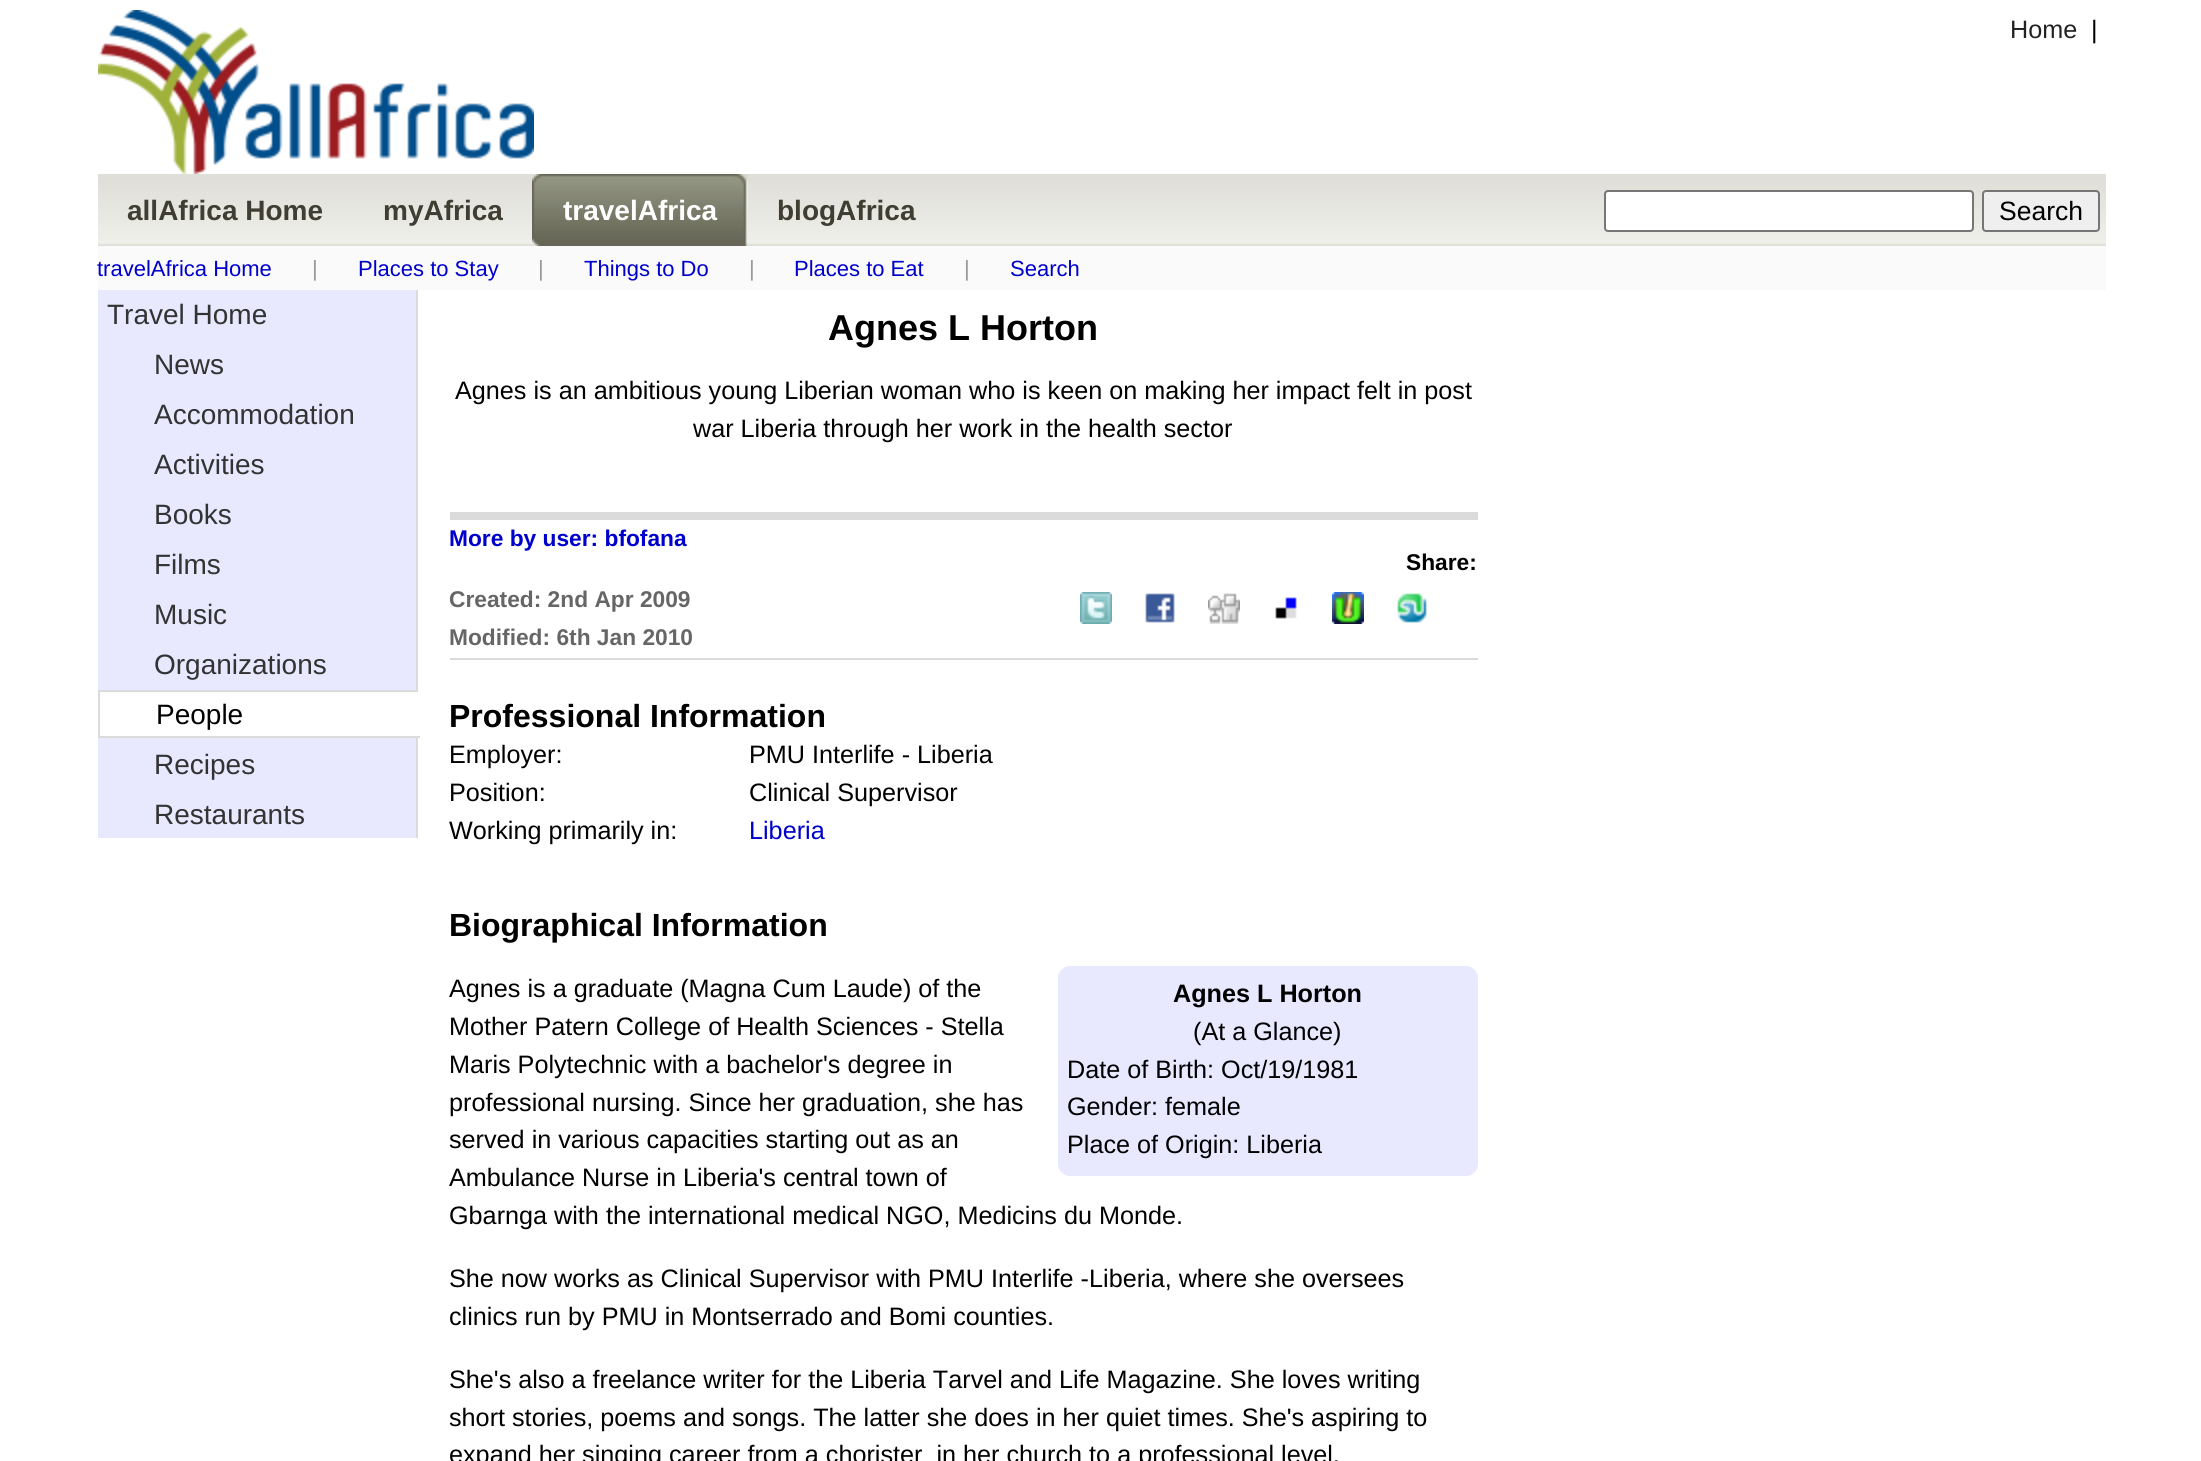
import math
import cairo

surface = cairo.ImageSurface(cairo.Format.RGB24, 2201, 1461)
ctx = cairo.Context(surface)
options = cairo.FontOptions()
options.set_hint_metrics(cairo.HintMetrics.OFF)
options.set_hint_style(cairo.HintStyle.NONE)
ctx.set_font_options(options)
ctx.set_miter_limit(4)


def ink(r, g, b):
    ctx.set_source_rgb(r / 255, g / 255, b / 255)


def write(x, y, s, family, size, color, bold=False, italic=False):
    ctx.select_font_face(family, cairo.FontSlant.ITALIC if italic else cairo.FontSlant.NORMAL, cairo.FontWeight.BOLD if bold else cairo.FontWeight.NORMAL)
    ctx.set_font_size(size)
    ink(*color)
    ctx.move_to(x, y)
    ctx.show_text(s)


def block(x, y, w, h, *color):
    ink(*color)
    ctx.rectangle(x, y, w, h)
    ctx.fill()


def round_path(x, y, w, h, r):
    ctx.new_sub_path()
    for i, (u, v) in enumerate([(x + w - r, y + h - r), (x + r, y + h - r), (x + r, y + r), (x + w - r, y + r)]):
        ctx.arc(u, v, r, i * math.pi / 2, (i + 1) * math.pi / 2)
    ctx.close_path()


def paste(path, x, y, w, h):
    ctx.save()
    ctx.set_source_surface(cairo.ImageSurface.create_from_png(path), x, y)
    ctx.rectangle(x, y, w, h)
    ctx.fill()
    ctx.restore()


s1 = dict(family="Liberation Sans", size=25.2, color=(34, 34, 34))
s2 = dict(family="Liberation Sans", size=25.2, color=(0, 0, 0))
s3 = dict(family="Liberation Sans", size=28, color=(64, 62, 50), bold=True)
s4 = dict(family="Liberation Sans", size=28, color=(255, 255, 255), bold=True)
s5 = dict(family="Liberation Sans", size=26.5, color=(0, 0, 0))
s6 = dict(family="Liberation Sans", size=22, color=(0, 0, 205))
s7 = dict(family="Liberation Sans", size=22, color=(153, 153, 153))
s8 = dict(family="Liberation Sans", size=28, color=(51, 51, 51))
s9 = dict(family="Liberation Sans", size=28, color=(0, 0, 0))
s10 = dict(family="Liberation Sans", size=36, color=(0, 0, 0), bold=True)
s11 = dict(family="Liberation Sans", size=22.75, color=(0, 0, 205), bold=True)
s12 = dict(family="Liberation Sans", size=22.75, color=(102, 102, 102), bold=True)
s13 = dict(family="Liberation Sans", size=22.75, color=(0, 0, 0), bold=True)
s14 = dict(family="Liberation Sans", size=32, color=(0, 0, 0), bold=True)
s15 = dict(family="Liberation Sans", size=25.2, color=(0, 0, 205))
s16 = dict(family="Liberation Sans", size=25.2, color=(0, 0, 0), bold=True)

ink(255, 255, 255)
ctx.paint()
paste("pic1.png", 98, 10, 436, 164)
write(2010, 38, "Home", **s1)
write(2091, 38, "|", **s2)
paste("pic2.png", 98, 174, 2008, 72)
write(127, 220, "allAfrica Home", **s3)
write(383, 220, "myAfrica", **s3)
paste("pic3.png", 532, 174, 40, 72)
paste("pic4.png", 572, 174, 176, 72)
write(563, 220, "travelAfrica", **s4)
write(777, 220, "blogAfrica", **s3)
ink(255, 255, 255)
round_path(1605, 191, 368, 40, 3)
ctx.fill_preserve()
ink(118, 118, 118)
ctx.stroke()
ink(239, 239, 239)
round_path(1983, 191, 116, 40, 3)
ctx.fill_preserve()
ink(118, 118, 118)
ctx.stroke()
write(1999, 220, "Search", **s5)
block(98, 246, 2008, 44, 250, 250, 250)
write(97, 276, "travelAfrica Home", **s6)
write(312, 276, "|", **s7)
write(358, 276, "Places to Stay", **s6)
write(538, 276, "|", **s7)
write(584, 276, "Things to Do", **s6)
write(749, 276, "|", **s7)
write(794, 276, "Places to Eat", **s6)
write(964, 276, "|", **s7)
write(1010, 276, "Search", **s6)
block(98, 290, 318, 548, 232, 232, 255)
block(416, 290, 2, 548, 219, 219, 219)
write(107, 324, "Travel Home", **s8)
write(154, 374, "News", **s8)
write(154, 424, "Accommodation", **s8)
write(154, 474, "Activities", **s8)
write(154, 524, "Books", **s8)
write(154, 574, "Films", **s8)
write(154, 624, "Music", **s8)
write(154, 674, "Organizations", **s8)
block(100, 692, 318, 44, 255, 255, 255)
block(98, 690, 322, 2, 219, 219, 219)
block(418, 690, 2, 2, 255, 255, 255)
block(98, 736, 322, 2, 219, 219, 219)
block(98, 690, 2, 48, 219, 219, 219)
write(156, 724, "People", **s9)
write(154, 774, "Recipes", **s8)
write(154, 824, "Restaurants", **s8)
write(828, 340, "Agnes L Horton", **s10)
write(455, 399, "Agnes is an ambitious young Liberian woman who is keen on making her impact felt in post", **s2)
write(693, 437, "war Liberia through her work in the health sector", **s2)
block(450, 512, 1028, 8, 219, 219, 219)
block(450, 658, 1028, 2, 219, 219, 219)
write(449, 546, "More by user: bfofana", **s11)
write(449, 607, "Created: 2nd Apr 2009", **s12)
write(449, 645, "Modified: 6th Jan 2010", **s12)
write(1406, 570, "Share:", **s13)
paste("pic5.png", 1080, 592, 32, 32)
paste("pic6.png", 1145, 593, 30, 30)
paste("pic7.png", 1208, 593, 32, 31)
paste("pic8.png", 1275, 597, 22, 22)
paste("pic9.png", 1332, 592, 32, 32)
paste("pic10.png", 1397, 593, 30, 30)
write(449, 727, "Professional Information", **s14)
write(449, 763, "Employer:", **s2)
write(749, 763, "PMU Interlife - Liberia", **s2)
write(449, 801, "Position:", **s2)
write(749, 801, "Clinical Supervisor", **s2)
write(449, 839, "Working primarily in:", **s2)
write(749, 839, "Liberia", **s15)
write(449, 936, "Biographical Information", **s14)
write(449, 997, "Agnes is a graduate (Magna Cum Laude) of the", **s2)
write(449, 1035, "Mother Patern College of Health Sciences - Stella", **s2)
write(449, 1073, "Maris Polytechnic with a bachelor's degree in", **s2)
write(449, 1111, "professional nursing. Since her graduation, she has", **s2)
write(449, 1148, "served in various capacities starting out as an", **s2)
write(449, 1186, "Ambulance Nurse in Liberia's central town of", **s2)
write(449, 1224, "Gbarnga with the international medical NGO, Medicins du Monde.", **s2)
ink(232, 232, 255)
round_path(1058, 966, 420, 210, 12)
ctx.fill()
write(1173, 1002, "Agnes L Horton", **s16)
write(1193, 1040, "(At a Glance)", **s2)
write(1067, 1078, "Date of Birth: Oct/19/1981", **s2)
write(1067, 1115, "Gender: female", **s2)
write(1067, 1153, "Place of Origin: Liberia", **s2)
write(449, 1287, "She now works as Clinical Supervisor with PMU Interlife -Liberia, where she oversees", **s2)
write(449, 1325, "clinics run by PMU in Montserrado and Bomi counties.", **s2)
write(449, 1388, "She's also a freelance writer for the Liberia Tarvel and Life Magazine. She loves writing", **s2)
write(449, 1426, "short stories, poems and songs. The latter she does in her quiet times. She's aspiring to", **s2)
write(449, 1463, "expand her singing career from a chorister  in her church to a professional level.", **s2)
surface.write_to_png("screenshot.png")
